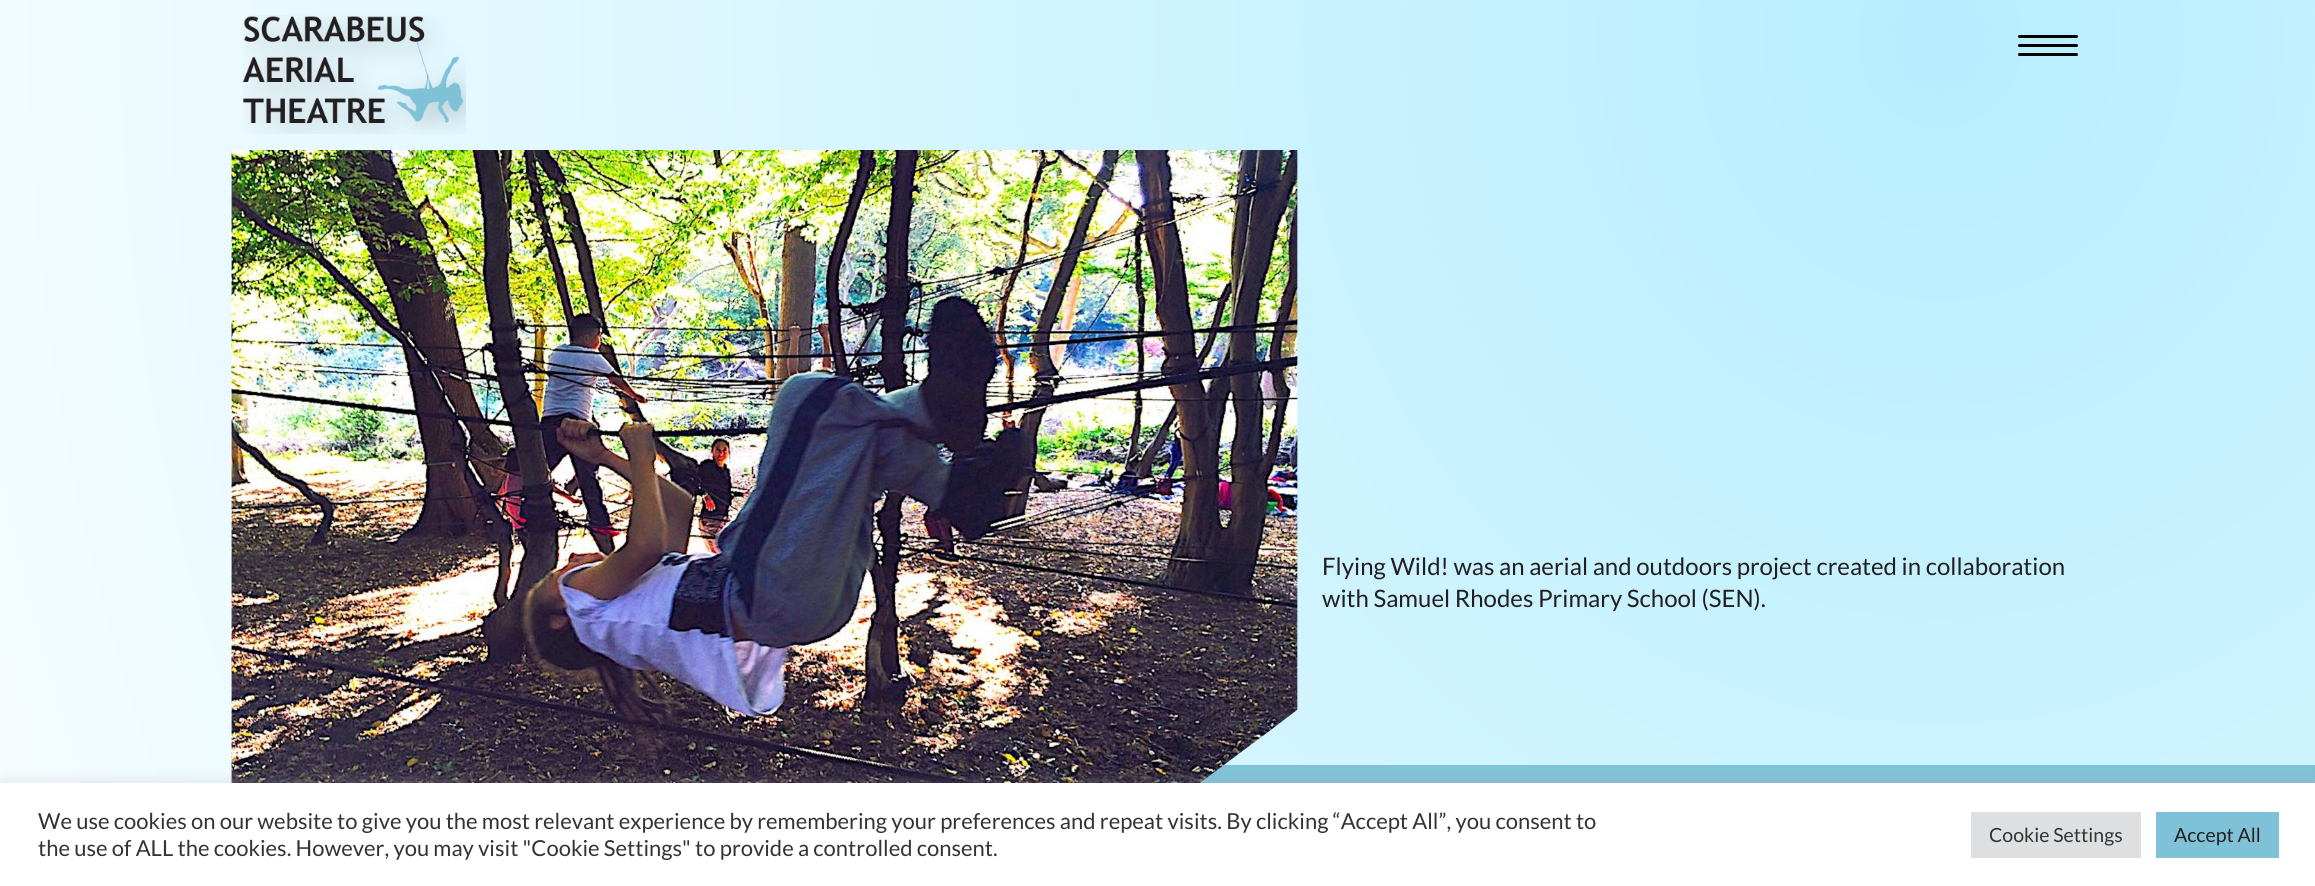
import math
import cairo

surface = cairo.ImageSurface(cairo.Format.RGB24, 2315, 886)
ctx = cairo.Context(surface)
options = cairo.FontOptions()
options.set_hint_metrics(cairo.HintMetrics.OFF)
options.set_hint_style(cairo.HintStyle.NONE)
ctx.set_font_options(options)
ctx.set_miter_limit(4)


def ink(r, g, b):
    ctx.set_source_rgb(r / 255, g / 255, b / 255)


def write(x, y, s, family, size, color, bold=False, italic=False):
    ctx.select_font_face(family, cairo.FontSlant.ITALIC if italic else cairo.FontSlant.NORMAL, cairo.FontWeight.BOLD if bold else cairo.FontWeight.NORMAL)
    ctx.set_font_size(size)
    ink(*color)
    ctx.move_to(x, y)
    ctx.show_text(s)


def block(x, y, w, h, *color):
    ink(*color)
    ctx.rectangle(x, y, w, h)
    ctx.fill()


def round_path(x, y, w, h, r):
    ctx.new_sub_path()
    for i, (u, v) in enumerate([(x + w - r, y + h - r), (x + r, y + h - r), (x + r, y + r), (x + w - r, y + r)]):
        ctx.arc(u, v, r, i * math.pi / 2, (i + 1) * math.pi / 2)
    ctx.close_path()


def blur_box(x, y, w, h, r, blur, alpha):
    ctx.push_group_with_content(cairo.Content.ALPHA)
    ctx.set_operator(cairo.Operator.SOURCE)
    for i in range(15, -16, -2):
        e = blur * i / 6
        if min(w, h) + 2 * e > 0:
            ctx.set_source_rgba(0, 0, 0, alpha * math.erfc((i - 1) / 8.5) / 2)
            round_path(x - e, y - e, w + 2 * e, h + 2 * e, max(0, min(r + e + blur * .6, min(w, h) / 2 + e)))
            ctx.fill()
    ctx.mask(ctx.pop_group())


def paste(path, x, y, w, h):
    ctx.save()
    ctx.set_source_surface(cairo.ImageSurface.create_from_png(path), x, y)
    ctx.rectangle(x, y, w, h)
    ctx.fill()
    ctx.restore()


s1 = dict(family="Lato", size=24, color=(35, 31, 32))
s2 = dict(family="Lato", size=22, color=(51, 51, 51))
s3 = dict(family="Lato", size=19.5, color=(51, 51, 51))
s4 = dict(family="Lato", size=19.5, color=(35, 31, 32))

ink(255, 255, 255)
ctx.paint()
gradient = cairo.RadialGradient(0, 0, 0, 0, 0, 1)
gradient.set_matrix(cairo.Matrix(1 / 2248, 0, 0, 1 / 2457, -1 * 1936 / 2248, -1 * 35 / 2457))
gradient.add_color_stop_rgba(0, 0.714, 0.933, 1, 1)
gradient.add_color_stop_rgba(1, 0.984, 0.996, 1, 1)
ctx.set_source(gradient)
ctx.rectangle(0, 0, 2315, 783)
ctx.fill()
paste("pic1.png", 243, 15, 223, 119)
ink(0, 0, 0)
round_path(2018, 53, 60, 3, 1.5)
ctx.fill()
round_path(2018, 35, 60, 3, 1.5)
ctx.fill()
round_path(2018, 44, 60, 3, 1.5)
ctx.fill()
gradient = cairo.LinearGradient(1711, 765, 1711, 862)
gradient.add_color_stop_rgba(0, 0.498, 0.761, 0.843, 1)
gradient.add_color_stop_rgba(0.6, 0.498, 0.761, 0.843, 1)
gradient.add_color_stop_rgba(0.6, 0.498, 0.761, 0.843, 0)
gradient.add_color_stop_rgba(1, 0, 0, 0, 0)
ctx.set_source(gradient)
ctx.rectangle(1199, 765, 1116, 18)
ctx.fill()
paste("pic2.png", 231, 150, 1067, 633)
write(1322, 575, "Flying Wild! was an aerial and outdoors project created in collaboration", **s1)
write(1322, 607, "with Samuel Rhodes Primary School (SEN).", **s1)
ink(172, 171, 171)
blur_box(0, 782, 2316, 103, 0, 7.5, 0.3)
block(0, 783, 2315, 103, 255, 255, 255)
write(38, 829, "We use cookies on our website to give you the most relevant experience by remembering your preferences and repeat visits. By clicking “Accept All”, you consent to", **s2)
write(38, 856, "the use of ALL the cookies. However, you may visit \"Cookie Settings\" to provide a controlled consent.", **s2)
block(1971, 812, 170, 46, 222, 223, 224)
write(1989, 842, "Cookie Settings", **s3)
block(2156, 812, 123, 46, 127, 194, 215)
write(2174, 842, "Accept All", **s4)
surface.write_to_png("screenshot.png")
